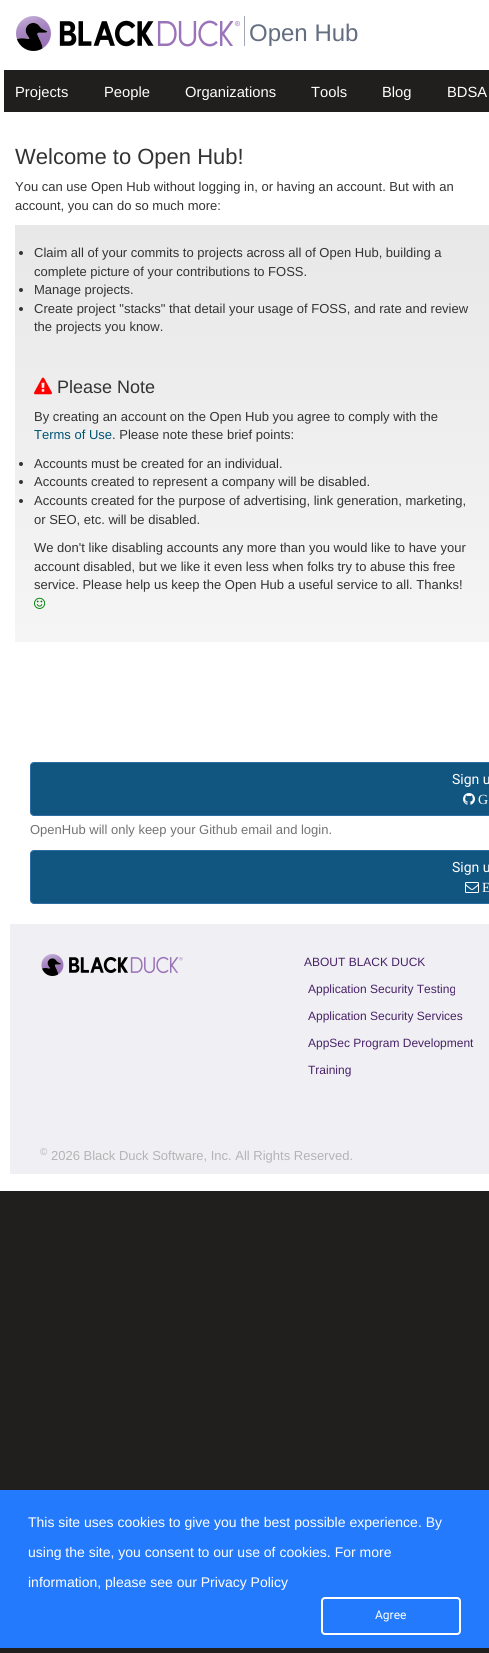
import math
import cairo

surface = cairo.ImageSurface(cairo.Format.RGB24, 489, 1653)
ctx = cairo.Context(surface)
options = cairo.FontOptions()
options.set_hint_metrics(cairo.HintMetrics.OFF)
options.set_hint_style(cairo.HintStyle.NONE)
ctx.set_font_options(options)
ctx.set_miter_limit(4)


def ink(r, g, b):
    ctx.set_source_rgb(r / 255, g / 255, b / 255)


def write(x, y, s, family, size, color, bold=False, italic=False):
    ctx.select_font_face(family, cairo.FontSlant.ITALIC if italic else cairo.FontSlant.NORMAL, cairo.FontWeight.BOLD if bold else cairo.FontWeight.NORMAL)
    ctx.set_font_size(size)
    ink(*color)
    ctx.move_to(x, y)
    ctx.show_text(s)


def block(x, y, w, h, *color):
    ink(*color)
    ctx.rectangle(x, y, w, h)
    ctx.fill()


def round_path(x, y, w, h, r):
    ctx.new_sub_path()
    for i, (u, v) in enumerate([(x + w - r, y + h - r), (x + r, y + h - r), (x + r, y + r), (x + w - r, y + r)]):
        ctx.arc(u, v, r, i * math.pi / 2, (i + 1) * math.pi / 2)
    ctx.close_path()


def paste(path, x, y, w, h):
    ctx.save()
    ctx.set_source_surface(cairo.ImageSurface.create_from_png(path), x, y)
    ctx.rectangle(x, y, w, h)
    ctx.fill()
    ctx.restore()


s1 = dict(family="Liberation Sans", size=24, color=(100, 110, 129))
s2 = dict(family="Liberation Sans", size=14.75, color=(255, 255, 255))
s3 = dict(family="Liberation Sans", size=22, color=(51, 51, 51))
s4 = dict(family="Liberation Sans", size=13, color=(51, 51, 51))
s5 = dict(family="Liberation Sans", size=18, color=(51, 51, 51))
s6 = dict(family="Liberation Sans", size=13, color=(0, 82, 114))
s7 = dict(family="Roboto", size=14, color=(255, 255, 255))
s8 = dict(family="Liberation Serif", size=14, color=(255, 255, 255))
s9 = dict(family="Liberation Sans", size=13, color=(115, 115, 115))
s10 = dict(family="Liberation Sans", size=12, color=(72, 34, 104))
s11 = dict(family="Liberation Sans", size=10, color=(179, 180, 179))
s12 = dict(family="Liberation Sans", size=13, color=(179, 180, 179))
s13 = dict(family="Liberation Sans", size=14, color=(255, 255, 255))
s14 = dict(family="Roboto", size=12, color=(255, 255, 255))

ink(33, 30, 30)
ctx.paint()
block(0, 0, 489, 1191, 255, 255, 255)
paste("pic1.png", 16, 16, 224, 35)
block(244, 16, 1, 30, 162, 168, 179)
write(249, 41, "Open Hub", **s1)
block(4, 70, 485, 42, 33, 30, 30)
write(15, 97, "Projects", **s2)
write(104, 97, "People", **s2)
write(185, 97, "Organizations", **s2)
write(311, 97, "Tools", **s2)
write(382, 97, "Blog", **s2)
write(447, 97, "BDSA", **s2)
write(15, 164, "Welcome to Open Hub!", **s3)
write(15, 191, "You can use Open Hub without logging in, or having an account. But with an", **s4)
write(15, 210, "account, you can do so much more:", **s4)
gradient = cairo.LinearGradient(252, 225, 253, 642)
gradient.add_color_stop_rgba(0, 0.91, 0.91, 0.91, 1)
gradient.add_color_stop_rgba(1, 0.961, 0.961, 0.961, 1)
ctx.set_source(gradient)
ctx.rectangle(15, 225, 474, 417)
ctx.fill()
ink(51, 51, 51)
ctx.arc(21, 253, 2, 0, 2 * math.pi)
ctx.fill()
write(34, 257, "Claim all of your commits to projects across all of Open Hub, building a", **s4)
write(34, 276, "complete picture of your contributions to FOSS.", **s4)
ctx.new_path()
ctx.arc(21, 290, 2, 0, 2 * math.pi)
ctx.fill()
write(34, 294, "Manage projects.", **s4)
ctx.new_path()
ctx.arc(21, 309, 2, 0, 2 * math.pi)
ctx.fill()
write(34, 313, "Create project \"stacks\" that detail your usage of FOSS, and rate and review", **s4)
write(34, 331, "the projects you know.", **s4)
paste("pic2.png", 34, 377, 18, 18)
write(57, 393, "Please Note", **s5)
write(34, 421, "By creating an account on the Open Hub you agree to comply with the", **s4)
write(34, 439, "Terms of Use", **s6)
write(112, 439, ". Please note these brief points:", **s4)
ctx.new_path()
ctx.arc(21, 464, 2, 0, 2 * math.pi)
ctx.fill()
write(34, 468, "Accounts must be created for an individual.", **s4)
ctx.new_path()
ctx.arc(21, 482, 2, 0, 2 * math.pi)
ctx.fill()
write(34, 486, "Accounts created to represent a company will be disabled.", **s4)
ctx.new_path()
ctx.arc(21, 501, 2, 0, 2 * math.pi)
ctx.fill()
write(34, 505, "Accounts created for the purpose of advertising, link generation, marketing,", **s4)
write(34, 524, "or SEO, etc. will be disabled.", **s4)
write(34, 552, "We don't like disabling accounts any more than you would like to have your", **s4)
write(34, 571, "account disabled, but we like it even less when folks try to abuse this free", **s4)
write(34, 589, "service. Please help us keep the Open Hub a useful service to all. Thanks!", **s4)
paste("pic3.png", 34, 597, 12, 12)
ink(16, 86, 129)
round_path(30.5, 762.5, 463, 53, 3.5)
ctx.fill_preserve()
ink(46, 109, 164)
ctx.set_line_width(1)
ctx.stroke()
write(452, 784, "Sign u", **s7)
paste("pic4.png", 463, 793, 12, 12)
write(478, 804, "G", **s8)
write(30, 834, "OpenHub will only keep your Github email and login.", **s9)
ink(16, 86, 129)
round_path(30.5, 850.5, 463, 53, 3.5)
ctx.fill_preserve()
ink(46, 109, 164)
ctx.stroke()
write(452, 872, "Sign u", **s7)
paste("pic5.png", 465, 882, 14, 11)
write(482, 892, "E", **s8)
block(10, 924, 479, 250, 240, 240, 244)
paste("pic6.png", 41, 954, 142, 22)
write(304, 966, "ABOUT BLACK DUCK", **s10)
write(308, 993, "Application Security Testing", **s10)
write(308, 1020, "Application Security Services", **s10)
write(308, 1047, "AppSec Program Development", **s10)
write(308, 1074, "Training", **s10)
write(40, 1155, "©", **s11)
write(51, 1160, "2026 Black Duck Software, Inc. All Rights Reserved.", **s12)
block(0, 1490, 489, 158, 35, 122, 252)
write(28, 1527, "This site uses cookies to give you the best possible experience. By", **s13)
write(28, 1557, "using the site, you consent to our use of cookies. For more", **s13)
write(28, 1587, "information, please see our Privacy Policy", **s13)
round_path(322, 1598, 138, 36, 3)
ctx.set_line_width(2)
ctx.stroke()
write(375, 1619, "Agree", **s14)
surface.write_to_png("screenshot.png")
